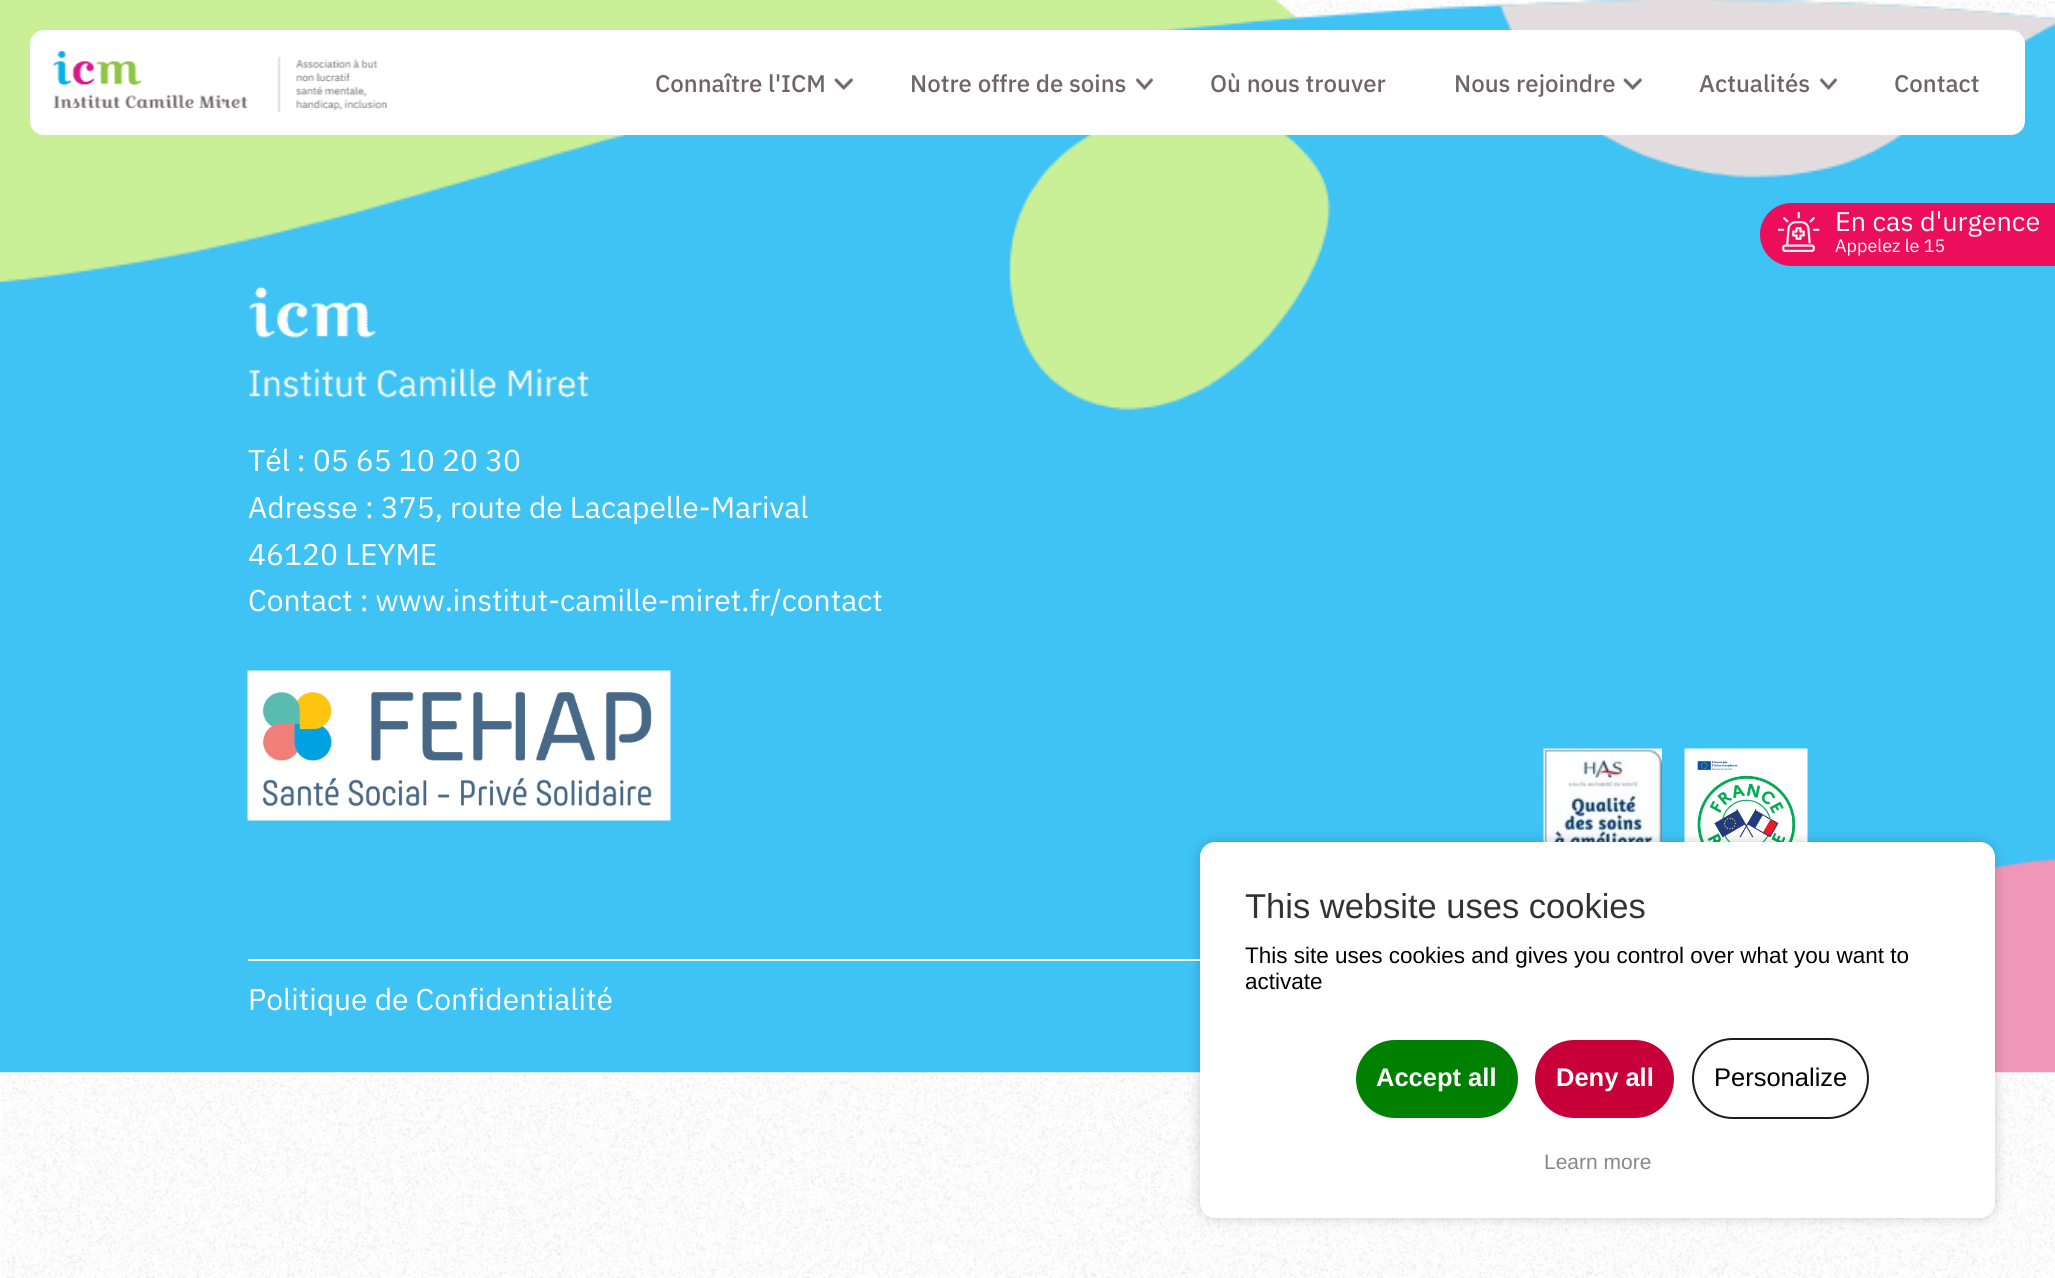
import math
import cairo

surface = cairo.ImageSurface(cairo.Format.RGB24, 2055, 1278)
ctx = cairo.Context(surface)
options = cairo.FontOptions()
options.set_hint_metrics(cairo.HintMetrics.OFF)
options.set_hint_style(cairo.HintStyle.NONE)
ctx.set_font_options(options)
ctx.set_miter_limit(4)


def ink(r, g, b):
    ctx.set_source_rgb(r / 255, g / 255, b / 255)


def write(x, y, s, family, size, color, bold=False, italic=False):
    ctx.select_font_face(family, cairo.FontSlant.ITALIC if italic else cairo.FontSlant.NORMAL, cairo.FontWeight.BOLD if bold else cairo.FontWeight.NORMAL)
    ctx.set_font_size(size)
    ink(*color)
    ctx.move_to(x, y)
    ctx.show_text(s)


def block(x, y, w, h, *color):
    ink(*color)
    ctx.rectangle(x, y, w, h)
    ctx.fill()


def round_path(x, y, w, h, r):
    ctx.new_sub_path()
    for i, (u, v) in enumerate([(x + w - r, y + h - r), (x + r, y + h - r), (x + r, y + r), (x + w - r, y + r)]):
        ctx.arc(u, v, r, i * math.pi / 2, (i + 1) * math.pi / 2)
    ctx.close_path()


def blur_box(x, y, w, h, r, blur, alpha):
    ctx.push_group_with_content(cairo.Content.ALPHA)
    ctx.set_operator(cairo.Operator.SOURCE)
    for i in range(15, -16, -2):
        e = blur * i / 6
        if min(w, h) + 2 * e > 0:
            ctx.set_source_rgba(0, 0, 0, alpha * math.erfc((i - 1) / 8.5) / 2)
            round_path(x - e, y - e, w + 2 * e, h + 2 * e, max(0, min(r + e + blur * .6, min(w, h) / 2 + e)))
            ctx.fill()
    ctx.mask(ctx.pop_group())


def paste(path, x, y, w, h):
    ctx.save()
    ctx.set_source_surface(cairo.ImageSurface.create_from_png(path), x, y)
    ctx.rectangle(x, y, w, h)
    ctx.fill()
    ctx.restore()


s1 = dict(family="IBM Plex Sans Medium", size=24, color=(113, 100, 105))
s2 = dict(family="IBM Plex Sans", size=27, color=(255, 255, 255))
s3 = dict(family="IBM Plex Sans", size=18, color=(255, 255, 255))
s4 = dict(family="IBM Plex Sans", size=30, color=(255, 255, 255))
s5 = dict(family="Liberation Sans", size=34.5, color=(51, 51, 51))
s6 = dict(family="Liberation Sans", size=22.5, color=(0, 0, 0))
s7 = dict(family="Liberation Sans", size=25.5, color=(255, 255, 255), bold=True)
s8 = dict(family="Liberation Sans", size=25.5, color=(0, 0, 0))
s9 = dict(family="Liberation Sans", size=21, color=(136, 136, 136))

ink(255, 255, 255)
ctx.paint()
paste("pic1.png", 0, 0, 2055, 1278)
paste("pic2.png", 0, 0, 1300, 285)
paste("pic7.png", 0, 0, 2055, 1073)
ink(255, 255, 255)
round_path(30, 30, 1995, 105, 14)
ctx.fill()
paste("pic3.png", 53, 51, 334, 61)
write(655, 92, "Connaître l'ICM", **s1)
paste("pic4.png", 834, 78, 19, 13)
write(910, 92, "Notre offre de soins", **s1)
paste("pic5.png", 1136, 78, 17, 13)
write(1210, 92, "Où nous trouver", **s1)
write(1454, 92, "Nous rejoindre", **s1)
paste("pic4.png", 1623, 78, 19, 13)
write(1699, 92, "Actualités", **s1)
paste("pic5.png", 1820, 78, 17, 13)
write(1894, 92, "Contact", **s1)
ink(236, 14, 91)
ctx.new_path()
ctx.move_to(1791.5, 203)
ctx.line_to(2055, 203)
ctx.line_to(2055, 266)
ctx.line_to(1791.5, 266)
ctx.curve_to(1774, 266, 1760, 252, 1760, 234.5)
ctx.curve_to(1760, 217, 1774, 203, 1791.5, 203)
ctx.close_path()
ctx.fill()
paste("pic6.png", 1778, 212, 42, 40)
write(1835, 231, "En cas d'urgence", **s2)
write(1835, 252, "Appelez le 15", **s3)
paste("pic8.png", 248, 286, 341, 112)
block(248, 959, 952, 2, 255, 255, 255)
write(248, 471, "Tél : 05 65 10 20 30", **s4)
write(248, 518, "Adresse : 375, route de Lacapelle-Marival", **s4)
write(248, 565, "46120 LEYME", **s4)
write(248, 611, "Contact : www.institut-camille-miret.fr/contact", **s4)
paste("pic9.png", 247, 670, 424, 151)
paste("pic10.png", 1543, 748, 119, 94)
paste("pic11.png", 1684, 748, 124, 94)
write(248, 1010, "Politique de Confidentialité", **s4)
ink(0, 0, 0)
blur_box(1200, 842, 795, 376, 15, 6, 0.2)
ink(255, 255, 255)
round_path(1200, 842, 795, 376, 15)
ctx.fill()
write(1245, 918, "This website uses cookies", **s5)
write(1245, 963, "This site uses cookies and gives you control over what you want to", **s6)
write(1245, 989, "activate", **s6)
ink(0, 128, 0)
round_path(1356, 1040, 162, 78, 39)
ctx.fill()
write(1376, 1086, "Accept all", **s7)
ink(199, 0, 57)
round_path(1535, 1040, 139, 78, 39)
ctx.fill()
write(1556, 1086, "Deny all", **s7)
round_path(1693, 1039, 175, 79, 39.5)
ink(29, 28, 28)
ctx.stroke()
write(1714, 1086, "Personalize", **s8)
write(1544, 1169, "Learn more", **s9)
surface.write_to_png("screenshot.png")
